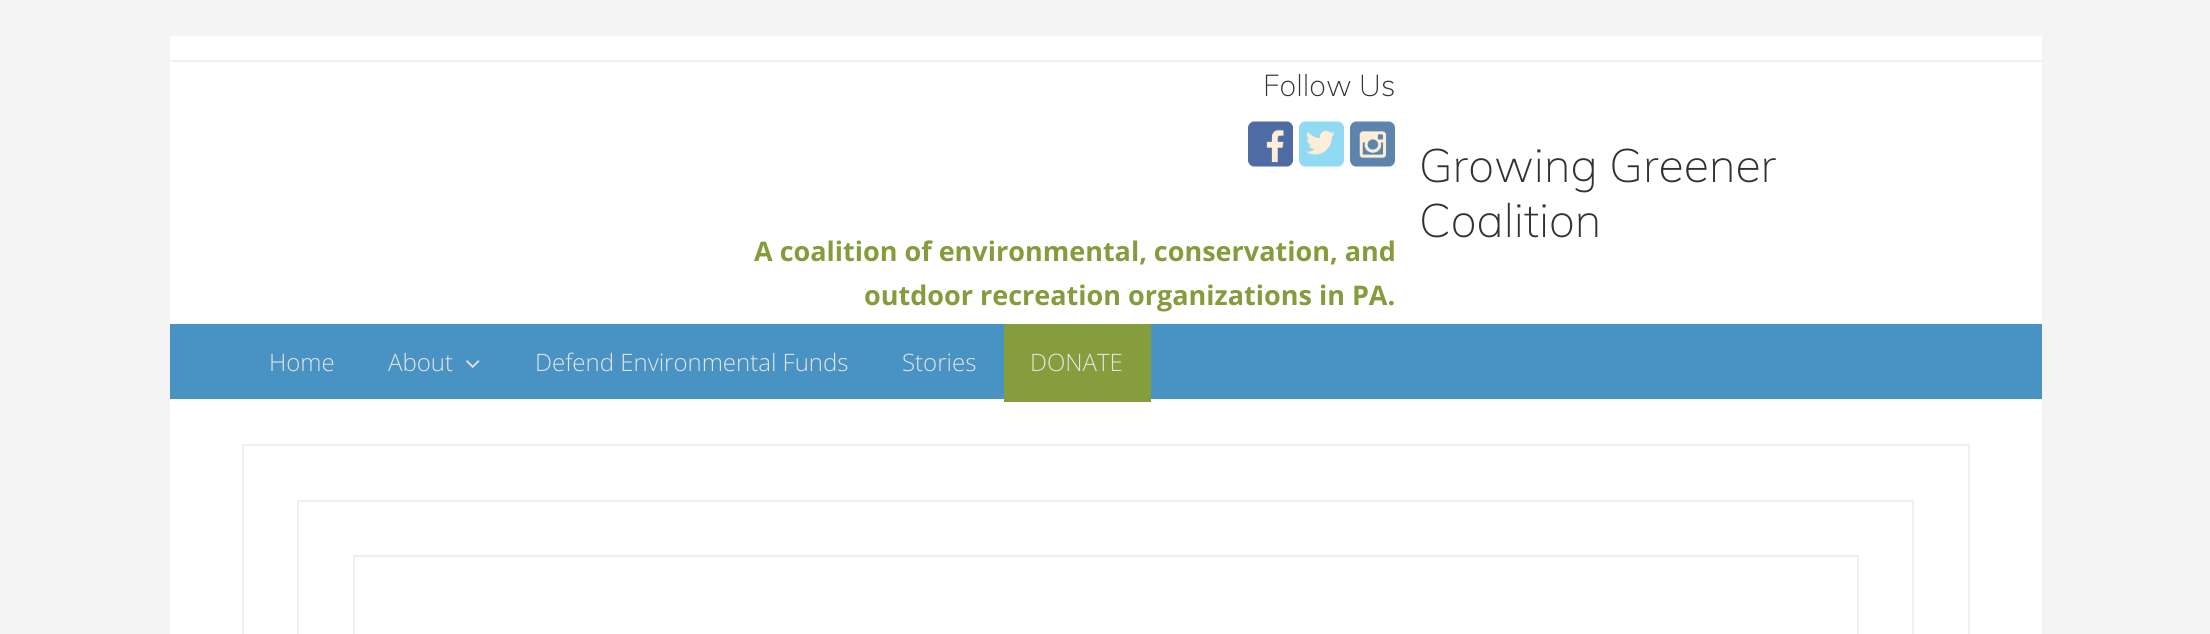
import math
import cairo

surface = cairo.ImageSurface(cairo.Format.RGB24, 2210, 634)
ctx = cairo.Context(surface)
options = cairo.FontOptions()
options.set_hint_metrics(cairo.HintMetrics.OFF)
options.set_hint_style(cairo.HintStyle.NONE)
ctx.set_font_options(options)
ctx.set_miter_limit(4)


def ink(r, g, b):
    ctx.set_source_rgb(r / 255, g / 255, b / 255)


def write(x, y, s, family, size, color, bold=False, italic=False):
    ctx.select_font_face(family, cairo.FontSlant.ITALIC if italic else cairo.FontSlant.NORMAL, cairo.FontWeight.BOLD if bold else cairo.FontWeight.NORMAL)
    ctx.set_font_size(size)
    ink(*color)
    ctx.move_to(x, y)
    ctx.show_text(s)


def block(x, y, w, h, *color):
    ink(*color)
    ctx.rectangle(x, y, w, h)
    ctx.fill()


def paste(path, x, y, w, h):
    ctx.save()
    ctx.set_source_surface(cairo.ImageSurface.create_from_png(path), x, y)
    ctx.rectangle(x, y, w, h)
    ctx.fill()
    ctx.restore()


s1 = dict(family="Muli ExtraLight", size=30, color=(50, 50, 50))
s2 = dict(family="Open Sans", size=27, color=(133, 156, 60), bold=True)
s3 = dict(family="Muli ExtraLight", size=46.5, color=(50, 50, 50))
s4 = dict(family="Open Sans Light", size=24, color=(228, 228, 228))

ink(244, 244, 244)
ctx.paint()
block(170, 36, 1872, 598, 255, 255, 255)
block(170, 60, 1872, 2, 242, 242, 242)
write(1263, 96, "Follow Us", **s1)
paste("pic1.png", 1248, 121, 45, 46)
paste("pic2.png", 1299, 121, 45, 46)
paste("pic3.png", 1350, 121, 45, 46)
write(754, 261, "A coalition of environmental, conservation, and", **s2)
write(864, 305, "outdoor recreation organizations in PA.", **s2)
write(1419, 182, "Growing Greener", **s3)
write(1419, 237, "Coalition", **s3)
block(170, 324, 1872, 75, 72, 147, 196)
write(269, 371, "Home", **s4)
write(388, 371, "About", **s4)
paste("pic4.png", 466, 360, 14, 8)
write(535, 371, "Defend Environmental Funds", **s4)
write(902, 371, "Stories", **s4)
block(1004, 324, 147, 78, 133, 157, 60)
write(1030, 371, "DONATE", **s4)
ctx.rectangle(243, 445, 1726, 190)
ink(240, 240, 240)
ctx.stroke()
ctx.rectangle(298, 501, 1615, 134)
ctx.stroke()
ctx.rectangle(354, 556, 1504, 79)
ctx.stroke()
surface.write_to_png("screenshot.png")
